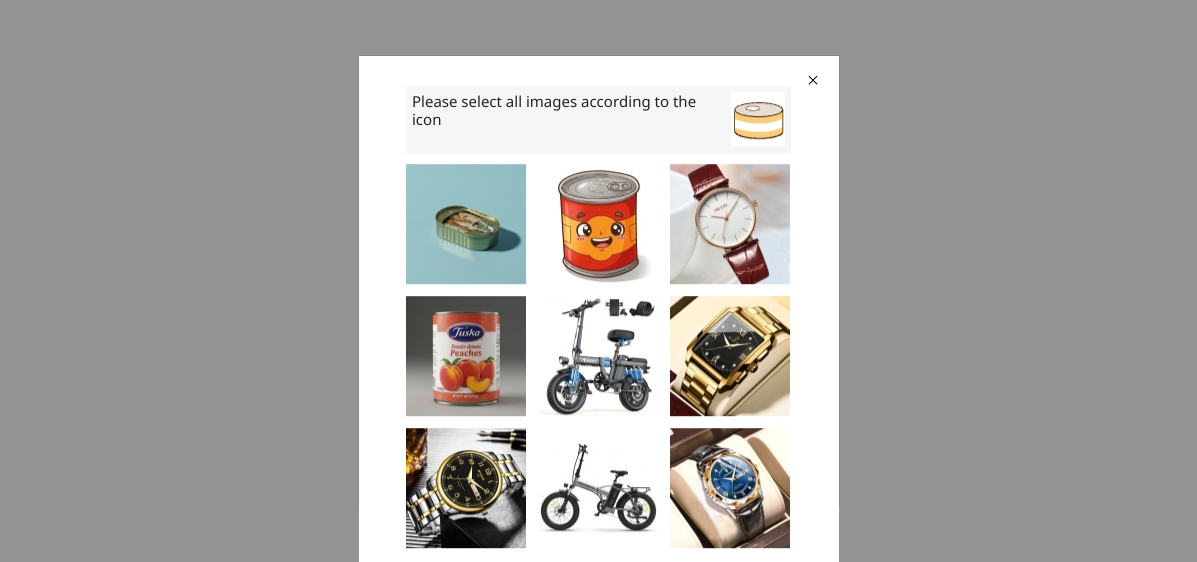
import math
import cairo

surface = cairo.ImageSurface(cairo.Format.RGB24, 1197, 562)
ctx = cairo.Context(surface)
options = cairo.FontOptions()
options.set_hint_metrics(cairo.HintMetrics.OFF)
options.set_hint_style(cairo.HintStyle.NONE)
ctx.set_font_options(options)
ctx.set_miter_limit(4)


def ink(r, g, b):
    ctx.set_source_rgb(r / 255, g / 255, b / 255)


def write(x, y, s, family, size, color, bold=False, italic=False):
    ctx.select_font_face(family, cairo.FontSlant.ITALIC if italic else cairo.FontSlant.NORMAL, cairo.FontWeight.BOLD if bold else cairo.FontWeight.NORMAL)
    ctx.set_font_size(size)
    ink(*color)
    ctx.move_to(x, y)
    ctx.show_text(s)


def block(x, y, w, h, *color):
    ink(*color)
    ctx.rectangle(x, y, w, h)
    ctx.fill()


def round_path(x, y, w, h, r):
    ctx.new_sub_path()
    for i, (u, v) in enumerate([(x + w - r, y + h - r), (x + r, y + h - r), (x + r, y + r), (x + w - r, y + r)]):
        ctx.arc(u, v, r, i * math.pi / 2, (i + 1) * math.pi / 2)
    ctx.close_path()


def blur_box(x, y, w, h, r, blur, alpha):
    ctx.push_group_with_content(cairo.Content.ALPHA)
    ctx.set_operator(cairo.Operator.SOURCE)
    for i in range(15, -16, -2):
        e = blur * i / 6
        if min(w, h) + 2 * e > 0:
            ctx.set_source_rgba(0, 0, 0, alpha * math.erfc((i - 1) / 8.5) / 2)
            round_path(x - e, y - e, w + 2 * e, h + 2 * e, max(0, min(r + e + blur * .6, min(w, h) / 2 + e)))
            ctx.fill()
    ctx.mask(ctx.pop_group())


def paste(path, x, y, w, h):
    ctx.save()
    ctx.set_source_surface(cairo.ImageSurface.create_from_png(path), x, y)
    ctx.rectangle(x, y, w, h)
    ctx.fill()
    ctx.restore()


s1 = dict(family="Noto Sans", size=15, color=(34, 34, 34))

ink(148, 148, 148)
ctx.paint()
ink(0, 0, 0)
blur_box(359, 56, 480, 450, 0, 0.5, 0.3)
block(359, 56, 480, 506, 255, 255, 255)
paste("pic1.png", 808, 75, 10, 10)
block(406, 86, 385, 68, 246, 246, 246)
write(412, 107, "Please select all images according to the", **s1)
write(412, 125, "icon", **s1)
block(731, 92, 54, 54, 255, 255, 255)
paste("pic2.png", 734, 102, 50, 38)
paste("pic3.png", 406, 164, 120, 121)
paste("pic4.png", 555, 169, 97, 114)
paste("pic5.png", 670, 164, 120, 121)
paste("pic6.png", 406, 296, 120, 121)
paste("pic7.png", 538, 296, 120, 120)
paste("pic8.png", 670, 296, 120, 121)
paste("pic9.png", 406, 428, 120, 121)
paste("pic10.png", 538, 442, 120, 92)
paste("pic11.png", 670, 428, 120, 121)
surface.write_to_png("screenshot.png")
